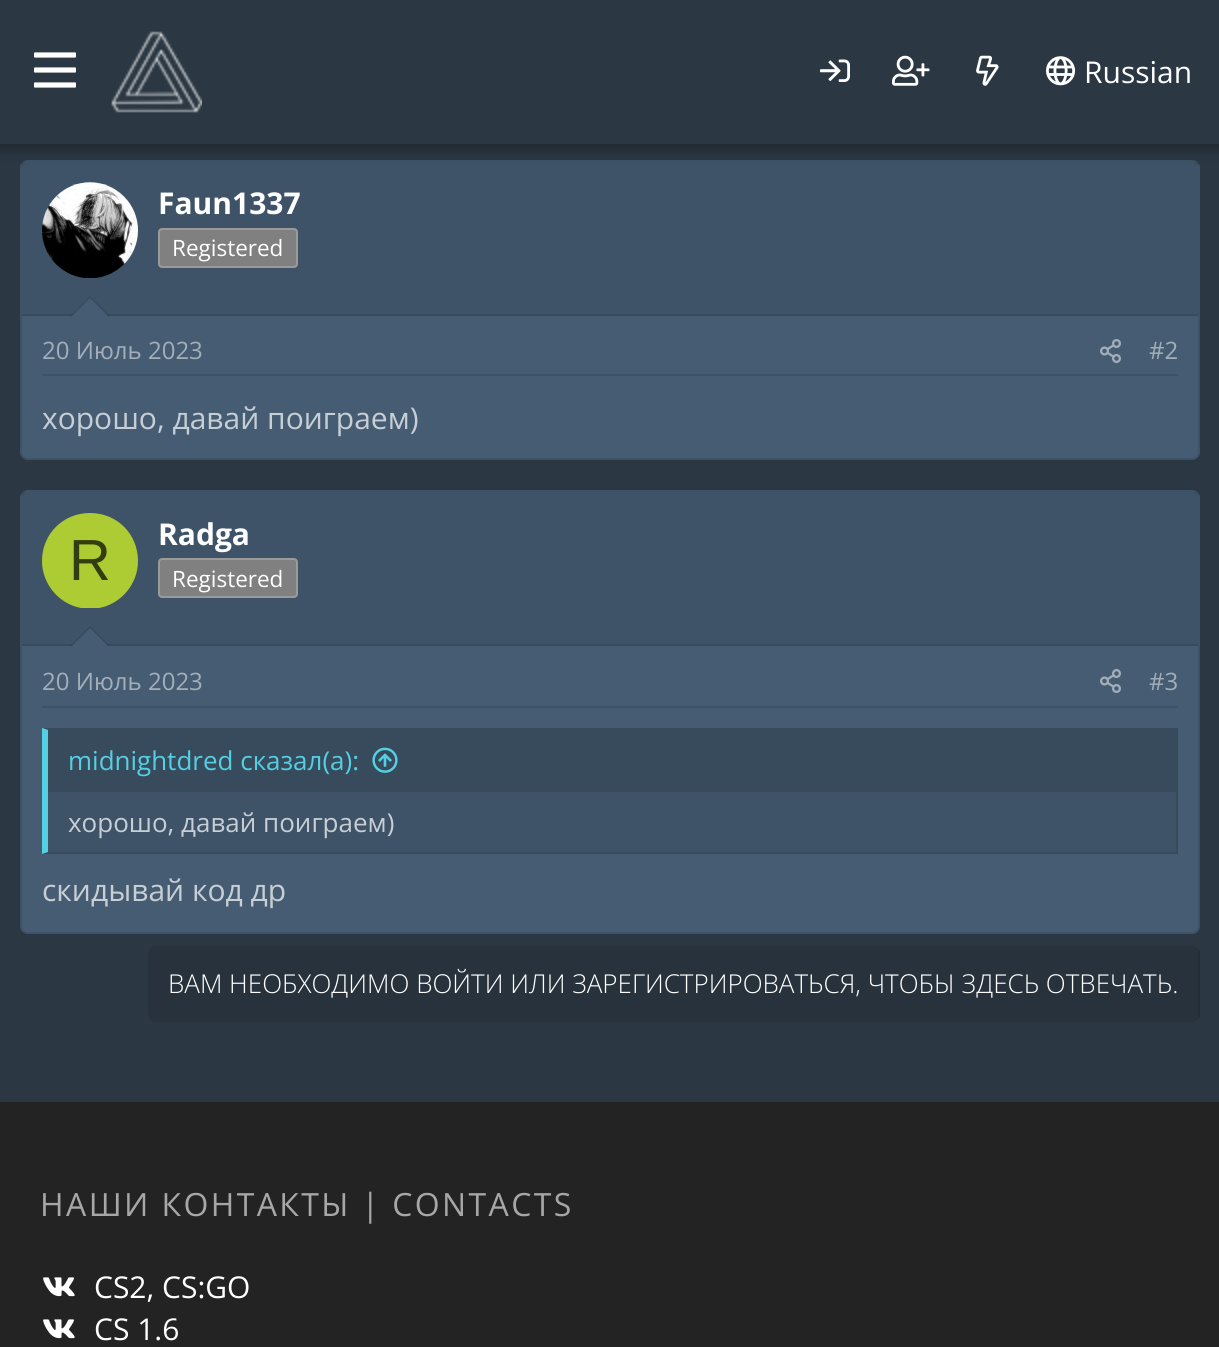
import math
import cairo

surface = cairo.ImageSurface(cairo.Format.RGB24, 1219, 1347)
ctx = cairo.Context(surface)
options = cairo.FontOptions()
options.set_hint_metrics(cairo.HintMetrics.OFF)
options.set_hint_style(cairo.HintStyle.NONE)
ctx.set_font_options(options)
ctx.set_miter_limit(4)


def ink(r, g, b):
    ctx.set_source_rgb(r / 255, g / 255, b / 255)


def write(x, y, s, family, size, color, bold=False, italic=False):
    ctx.select_font_face(family, cairo.FontSlant.ITALIC if italic else cairo.FontSlant.NORMAL, cairo.FontWeight.BOLD if bold else cairo.FontWeight.NORMAL)
    ctx.set_font_size(size)
    ink(*color)
    ctx.move_to(x, y)
    ctx.show_text(s)


def write_spaced(x, y, s, letter, word):
    ctx.move_to(x, y)
    for ch in s:
        ctx.show_text(ch)
        ctx.rel_move_to(letter + word * (ch == ' '), 0)


def block(x, y, w, h, *color):
    ink(*color)
    ctx.rectangle(x, y, w, h)
    ctx.fill()


def round_path(x, y, w, h, r):
    ctx.new_sub_path()
    for i, (u, v) in enumerate([(x + w - r, y + h - r), (x + r, y + h - r), (x + r, y + r), (x + w - r, y + r)]):
        ctx.arc(u, v, r, i * math.pi / 2, (i + 1) * math.pi / 2)
    ctx.close_path()


def blur_box(x, y, w, h, r, blur, alpha):
    ctx.push_group_with_content(cairo.Content.ALPHA)
    ctx.set_operator(cairo.Operator.SOURCE)
    for i in range(15, -16, -2):
        e = blur * i / 6
        if min(w, h) + 2 * e > 0:
            ctx.set_source_rgba(0, 0, 0, alpha * math.erfc((i - 1) / 8.5) / 2)
            round_path(x - e, y - e, w + 2 * e, h + 2 * e, max(0, min(r + e + blur * .6, min(w, h) / 2 + e)))
            ctx.fill()
    ctx.mask(ctx.pop_group())


def paste(path, x, y, w, h):
    ctx.save()
    ctx.set_source_surface(cairo.ImageSurface.create_from_png(path), x, y)
    ctx.rectangle(x, y, w, h)
    ctx.fill()
    ctx.restore()


s1 = dict(family="Open Sans", size=30, color=(255, 255, 255))
s2 = dict(family="Open Sans", size=30, color=(255, 255, 255), bold=True)
s3 = dict(family="Open Sans", size=22.5, color=(255, 255, 255))
s4 = dict(family="Open Sans", size=24, color=(162, 174, 185))
s5 = dict(family="Open Sans", size=30, color=(199, 206, 213))
s6 = dict(family="Liberation Sans", size=58, color=(52, 61, 15))
s7 = dict(family="Open Sans", size=26, color=(84, 208, 226))
s8 = dict(family="Open Sans", size=26, color=(199, 206, 213))
s9 = dict(family="Open Sans Light", size=26, color=(255, 255, 255))

ink(43, 56, 67)
ctx.paint()
ink(69, 92, 114)
round_path(20, 160, 1180, 300, 8)
ctx.fill()
round_path(21, 161, 1178, 298, 7)
ctx.set_source_rgba(0, 0, 0, 0.1)
ctx.stroke()
ctx.rectangle(22, 162, 1176, 152)
ctx.fill()
ink(0, 0, 0)
blur_box(-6, -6, 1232, 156, 0, 8, 0.3)
block(0, 0, 1219, 144, 43, 56, 67)
paste("pic1.png", 34, 52, 42, 36)
paste("pic2.png", 111, 31, 91, 82)
paste("pic3.png", 820, 59, 30, 23)
paste("pic4.png", 892, 55, 38, 31)
paste("pic5.png", 976, 55, 23, 31)
paste("pic6.png", 1046, 56, 30, 30)
write(1084, 83, "Russian", **s1)
block(22, 314, 1176, 2, 56, 75, 92)
ink(69, 92, 114)
ctx.new_path()
ctx.move_to(90, 182)
ctx.curve_to(63, 182, 42, 204, 42, 230)
ctx.curve_to(42, 255, 60, 275, 84, 278)
ctx.line_to(96, 278)
ctx.curve_to(120, 275, 138, 255, 138, 230)
ctx.curve_to(138, 204, 117, 182, 90, 182)
ctx.close_path()
ctx.fill()
paste("pic7.png", 42, 182, 96, 96)
write(158, 214, "Faun1337", **s2)
ink(128, 128, 128)
round_path(159, 229, 138, 38, 3)
ctx.fill_preserve()
ink(154, 154, 154)
ctx.stroke()
write(172, 256, "Registered", **s3)
ctx.set_source_rgba(0, 0, 0, 0.1)
ctx.new_path()
ctx.move_to(110, 316)
ctx.line_to(70, 316)
ctx.line_to(90, 296)
ctx.close_path()
ctx.fill()
ink(69, 92, 114)
ctx.new_path()
ctx.move_to(108, 316)
ctx.line_to(72, 316)
ctx.line_to(90, 298)
ctx.close_path()
ctx.fill()
block(42, 374, 1136, 2, 62, 83, 103)
write(42, 359, "20 Июль 2023", **s4)
paste("pic8.png", 1100, 339, 21, 24)
write(1149, 359, "#2", **s4)
write(42, 429, "хорошо, давай поиграем)", **s5)
ink(69, 92, 114)
round_path(20, 490, 1180, 444, 8)
ctx.fill()
round_path(21, 491, 1178, 442, 7)
ctx.set_source_rgba(0, 0, 0, 0.1)
ctx.stroke()
ctx.rectangle(22, 492, 1176, 152)
ctx.fill()
block(22, 644, 1176, 2, 56, 75, 92)
ink(173, 204, 51)
ctx.new_path()
ctx.move_to(90, 513)
ctx.curve_to(117, 513, 138, 534, 138, 561)
ctx.curve_to(138, 584, 121, 604, 99, 608)
ctx.line_to(81, 608)
ctx.curve_to(59, 604, 42, 584, 42, 561)
ctx.curve_to(42, 534, 63, 513, 90, 513)
ctx.close_path()
ctx.fill()
write(69, 580, "R", **s6)
write(158, 545, "Radga", **s2)
ink(128, 128, 128)
round_path(159, 559, 138, 38, 3)
ctx.fill_preserve()
ink(154, 154, 154)
ctx.stroke()
write(172, 587, "Registered", **s3)
ctx.set_source_rgba(0, 0, 0, 0.1)
ctx.new_path()
ctx.move_to(110, 646)
ctx.line_to(70, 646)
ctx.line_to(90, 626)
ctx.close_path()
ctx.fill()
ink(69, 92, 114)
ctx.new_path()
ctx.move_to(108, 646)
ctx.line_to(72, 646)
ctx.line_to(90, 628)
ctx.close_path()
ctx.fill()
block(42, 706, 1136, 2, 62, 83, 103)
write(42, 690, "20 Июль 2023", **s4)
paste("pic8.png", 1100, 669, 21, 24)
write(1149, 690, "#3", **s4)
block(42, 728, 1136, 126, 62, 83, 103)
ink(56, 75, 93)
ctx.new_path()
ctx.move_to(42, 728)
ctx.line_to(1178, 728)
ctx.line_to(1176, 730)
ctx.line_to(48, 730)
ctx.close_path()
ctx.fill()
ctx.set_source_rgba(0, 0, 0, 0.1)
ctx.new_path()
ctx.move_to(1178, 728)
ctx.line_to(1178, 854)
ctx.line_to(1176, 852)
ctx.line_to(1176, 730)
ctx.close_path()
ctx.fill()
ctx.new_path()
ctx.move_to(1178, 854)
ctx.line_to(42, 854)
ctx.line_to(48, 852)
ctx.line_to(1176, 852)
ctx.close_path()
ctx.fill()
ink(84, 208, 226)
ctx.new_path()
ctx.move_to(42, 854)
ctx.line_to(42, 728)
ctx.line_to(48, 730)
ctx.line_to(48, 852)
ctx.close_path()
ctx.fill()
block(48, 730, 1128, 62, 56, 75, 93)
write(68, 770, "midnightdred сказал(а):", **s7)
paste("pic9.png", 372, 747, 26, 26)
write(68, 832, "хорошо, давай поиграем)", **s8)
write(42, 901, "скидывай код др", **s5)
ink(39, 50, 60)
round_path(148, 946, 1052, 76, 8)
ctx.fill()
ctx.set_source_rgba(0, 0, 0, 0.1)
ctx.rectangle(1198, 950, 2, 68)
ctx.fill()
write(168, 993, "ВАМ НЕОБХОДИМО ВОЙТИ ИЛИ ЗАРЕГИСТРИРОВАТЬСЯ, ЧТОБЫ ЗДЕСЬ ОТВЕЧАТЬ.", **s9)
block(0, 1102, 1219, 245, 35, 35, 35)
ctx.select_font_face("Open Sans")
ctx.set_font_size(32)
ink(167, 167, 167)
write_spaced(40, 1216, "НАШИ КОНТАКТЫ | CONTACTS", 2.4, 0)
paste("pic10.png", 43, 1277, 32, 20)
write(94, 1298, "CS2, CS:GO", **s1)
paste("pic10.png", 43, 1319, 32, 20)
write(94, 1340, "CS 1.6", **s1)
surface.write_to_png("screenshot.png")
